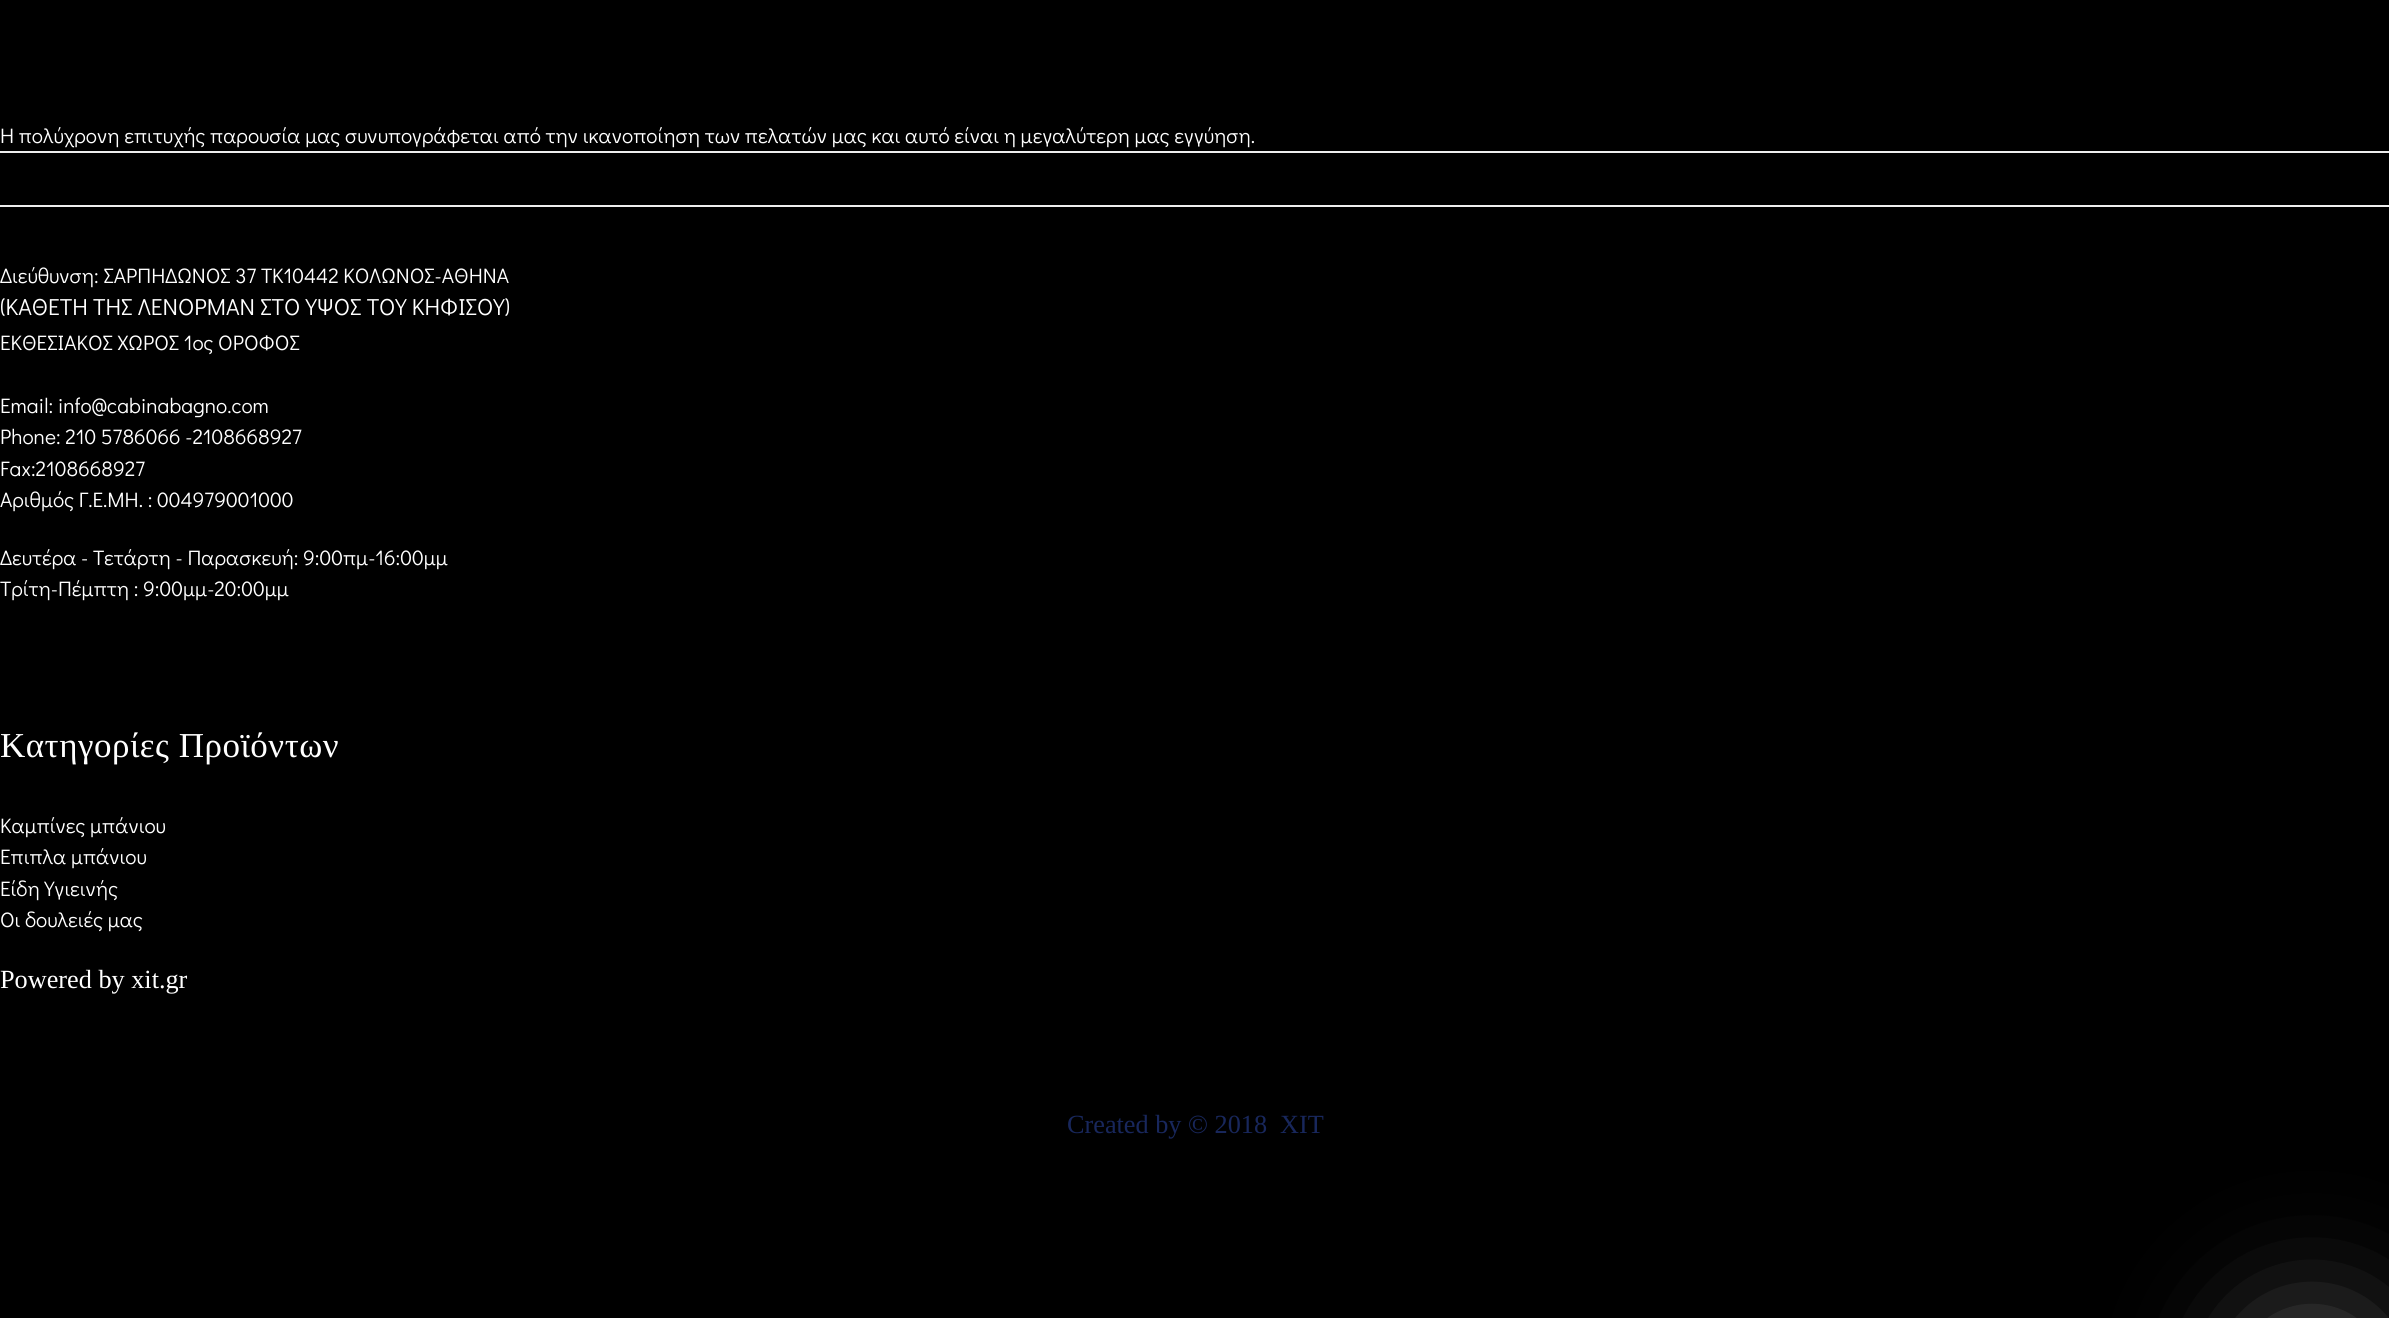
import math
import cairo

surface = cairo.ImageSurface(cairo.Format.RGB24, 2389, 1318)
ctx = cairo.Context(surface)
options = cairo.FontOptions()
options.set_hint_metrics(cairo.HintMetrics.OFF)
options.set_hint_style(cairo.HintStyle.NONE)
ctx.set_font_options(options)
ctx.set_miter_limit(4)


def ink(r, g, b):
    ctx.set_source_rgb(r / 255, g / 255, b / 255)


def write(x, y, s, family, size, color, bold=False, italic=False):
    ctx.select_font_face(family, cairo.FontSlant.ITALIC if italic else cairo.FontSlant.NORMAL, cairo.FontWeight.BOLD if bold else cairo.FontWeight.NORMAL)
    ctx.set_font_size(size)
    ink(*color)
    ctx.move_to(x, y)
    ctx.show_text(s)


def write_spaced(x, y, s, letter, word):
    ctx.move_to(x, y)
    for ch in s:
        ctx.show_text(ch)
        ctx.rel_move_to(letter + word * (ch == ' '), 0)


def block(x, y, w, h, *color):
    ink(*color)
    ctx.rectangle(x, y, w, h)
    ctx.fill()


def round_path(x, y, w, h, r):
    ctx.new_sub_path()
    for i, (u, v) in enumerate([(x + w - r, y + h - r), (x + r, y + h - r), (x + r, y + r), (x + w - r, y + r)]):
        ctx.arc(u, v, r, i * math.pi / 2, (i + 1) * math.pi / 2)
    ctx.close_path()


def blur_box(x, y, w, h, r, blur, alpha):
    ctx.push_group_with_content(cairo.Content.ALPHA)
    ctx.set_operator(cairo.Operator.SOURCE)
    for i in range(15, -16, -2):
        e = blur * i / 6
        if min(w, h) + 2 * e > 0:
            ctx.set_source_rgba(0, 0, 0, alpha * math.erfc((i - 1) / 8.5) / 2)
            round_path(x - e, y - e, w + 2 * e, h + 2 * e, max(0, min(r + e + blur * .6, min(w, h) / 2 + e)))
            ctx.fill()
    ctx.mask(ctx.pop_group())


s1 = dict(family="Didact Gothic", size=21, color=(255, 255, 255))
s2 = dict(family="Didact Gothic", size=23.3, color=(255, 255, 255))
s3 = dict(family="Liberation Serif", size=26.25, color=(255, 255, 255))
s4 = dict(family="Liberation Serif", size=26.25, color=(24, 39, 92))

ink(0, 0, 0)
ctx.paint()
write(0, 143, "Η πολύχρονη επιτυχής παρουσία μας συνυπογράφεται από την ικανοποίηση των πελατών μας και αυτό είναι η μεγαλύτερη μας εγγύηση.", **s1)
block(0, 151, 2389, 2, 238, 238, 238)
block(0, 205, 2389, 2, 238, 238, 238)
write(0, 283, "Διεύθυνση: ΣΑΡΠΗΔΩΝΟΣ 37 ΤΚ10442 ΚΟΛΩΝΟΣ-ΑΘΗΝΑ", **s1)
write(0, 315, "(ΚΑΘΕΤΗ ΤΗΣ ΛΕΝΟΡΜΑΝ ΣΤΟ ΥΨΟΣ ΤΟΥ ΚΗΦΙΣΟΥ)", **s2)
write(0, 350, "ΕΚΘΕΣΙΑΚΟΣ ΧΩΡΟΣ 1ος ΟΡΟΦΟΣ", **s1)
write(0, 413, "Email: info@cabinabagno.com", **s1)
write(0, 444, "Phone: 210 5786066 -2108668927", **s1)
write(0, 476, "Fax:2108668927", **s1)
write(0, 507, "Αριθμός Γ.Ε.ΜΗ. : 004979001000", **s1)
write(0, 565, "Δευτέρα - Τετάρτη - Παρασκευή: 9:00πμ-16:00μμ", **s1)
write(0, 596, "Τρίτη-Πέμπτη : 9:00μμ-20:00μμ", **s1)
ctx.select_font_face("Liberation Serif")
ctx.set_font_size(35)
write_spaced(0, 757, "Κατηγορίες Προϊόντων", 0.5, 0)
write(0, 833, "Καμπίνες μπάνιου", **s1)
write(0, 864, "Έπιπλα μπάνιου", **s1)
write(0, 896, "Είδη Υγιεινής", **s1)
write(0, 927, "Οι δουλειές μας", **s1)
write(0, 988, "Powered by xit.gr", **s3)
write(1067, 1133, "Created by © 2018", **s4)
write(1280, 1133, "XIT", **s4)
ink(162, 162, 162)
blur_box(2268, 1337, 88, 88, 44, 66.5, 0.66)
surface.write_to_png("screenshot.png")
